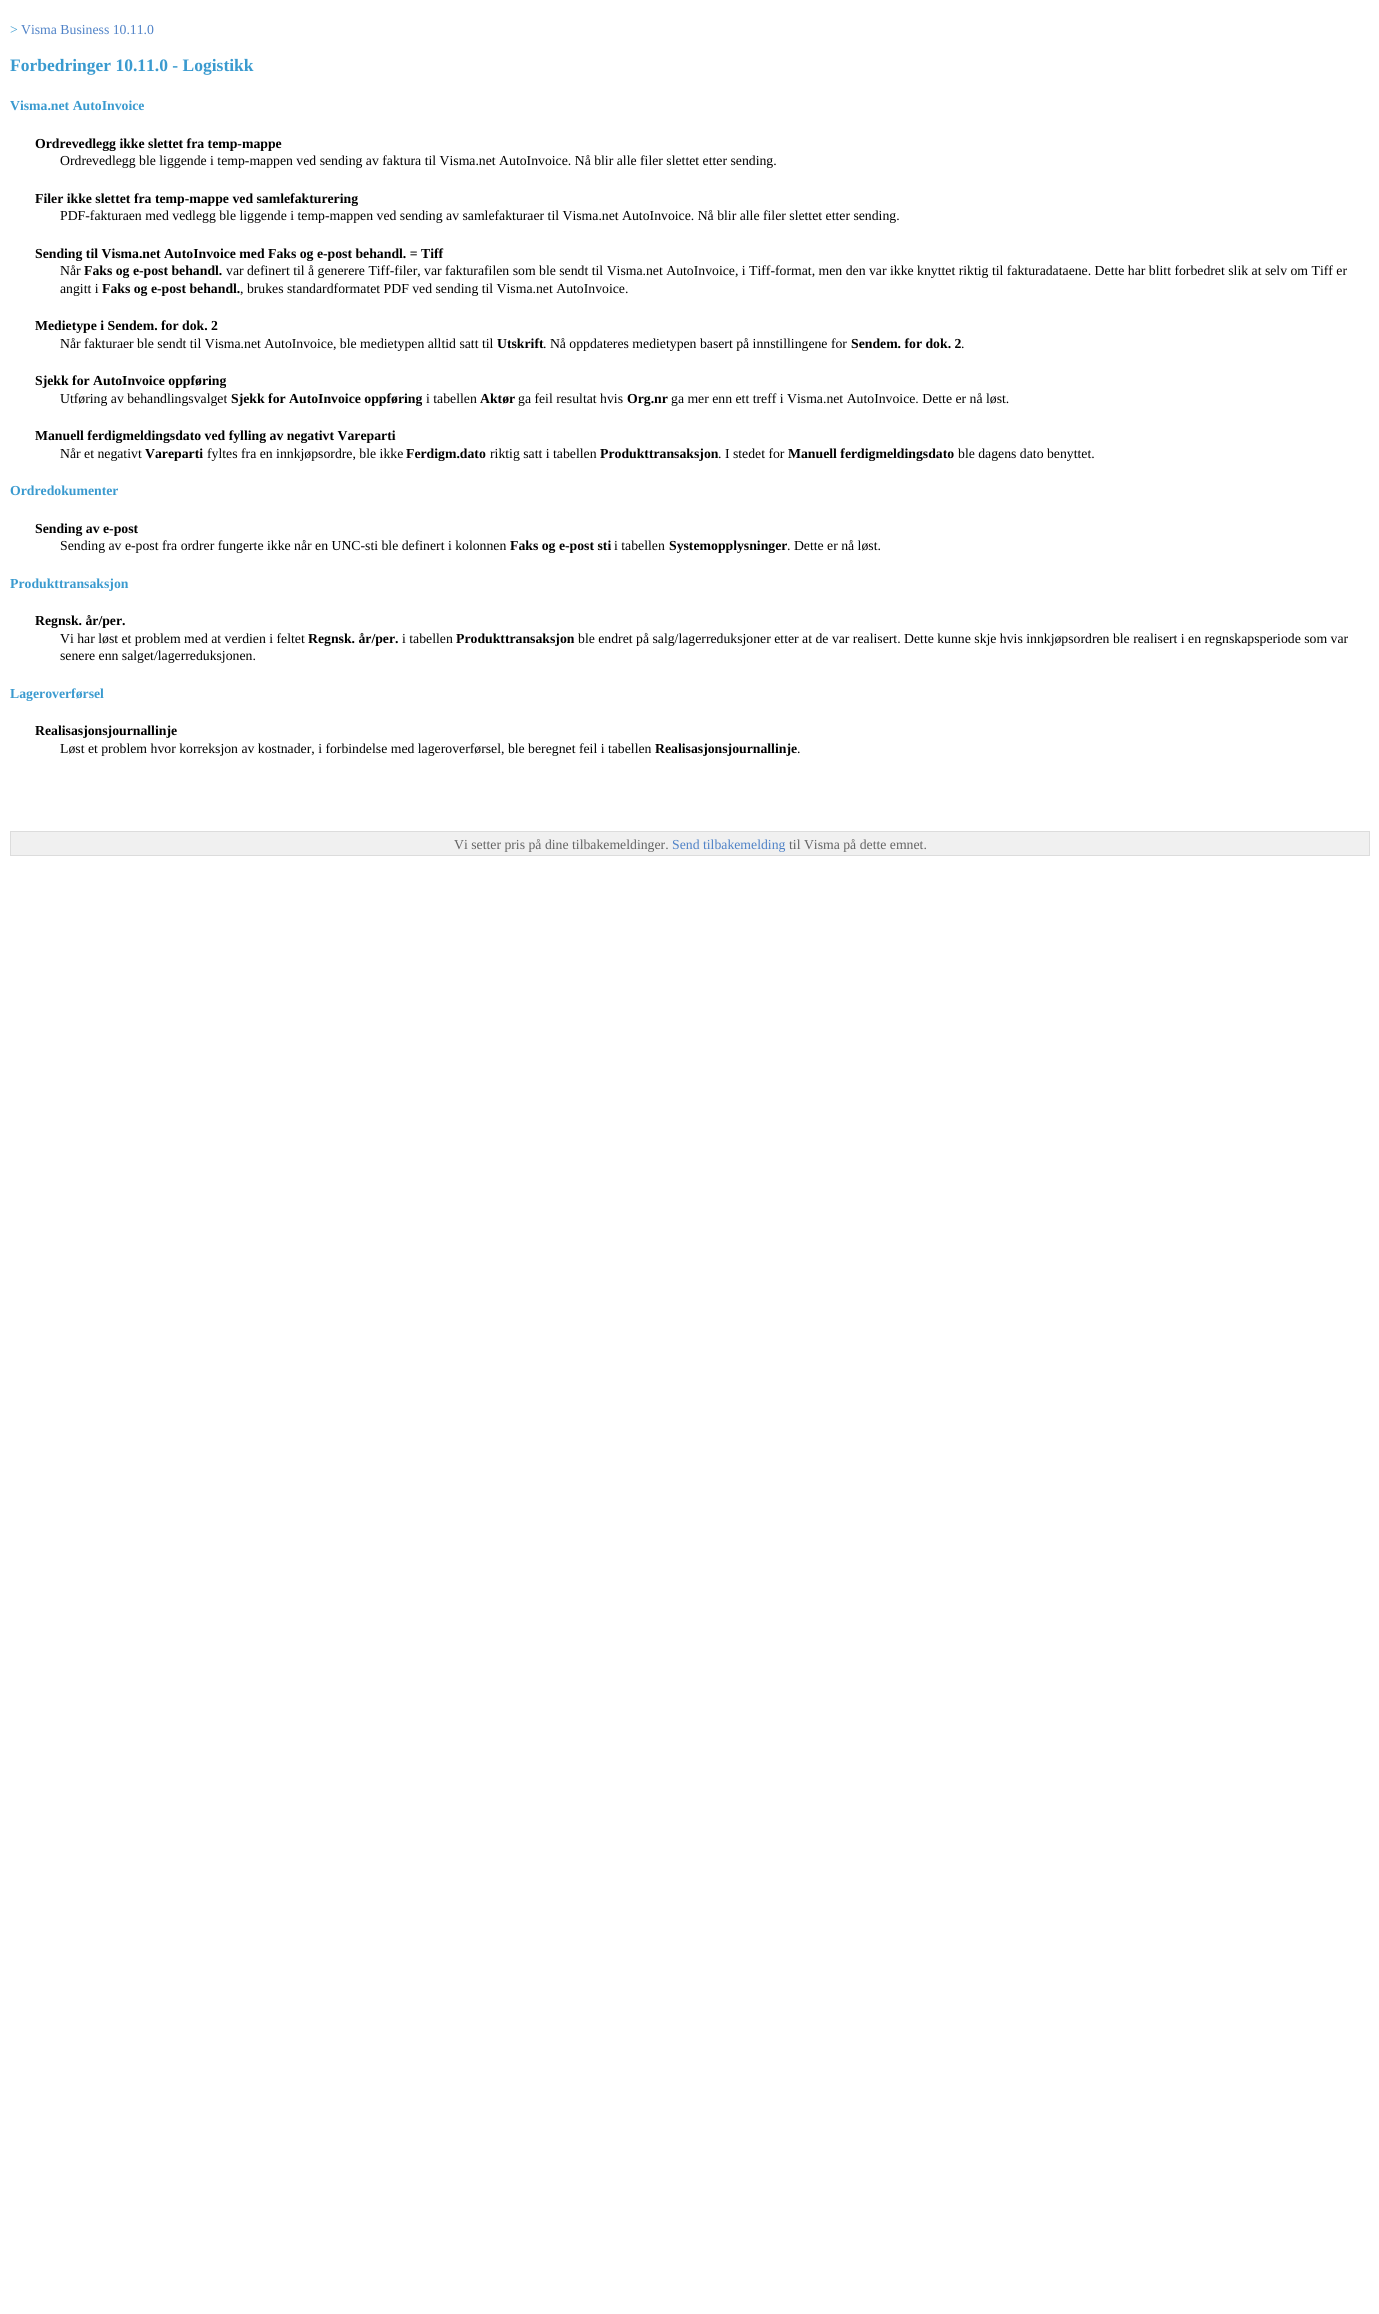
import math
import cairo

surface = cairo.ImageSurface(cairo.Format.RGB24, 1379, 2314)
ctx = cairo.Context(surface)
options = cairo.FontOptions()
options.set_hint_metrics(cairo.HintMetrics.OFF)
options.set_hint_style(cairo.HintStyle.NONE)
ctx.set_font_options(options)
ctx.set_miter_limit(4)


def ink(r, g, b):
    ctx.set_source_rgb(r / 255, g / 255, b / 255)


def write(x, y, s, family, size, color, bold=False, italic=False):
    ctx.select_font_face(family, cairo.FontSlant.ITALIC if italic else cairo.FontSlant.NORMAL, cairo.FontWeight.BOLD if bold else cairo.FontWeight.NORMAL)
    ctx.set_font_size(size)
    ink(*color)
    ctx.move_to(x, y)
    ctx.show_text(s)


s1 = dict(family="Liberation Serif", size=13.75, color=(58, 154, 207))
s2 = dict(family="Liberation Serif", size=13.75, color=(79, 130, 199))
s3 = dict(family="Liberation Serif", size=17.5, color=(58, 154, 207), bold=True)
s4 = dict(family="Liberation Serif", size=13.75, color=(58, 154, 207), bold=True)
s5 = dict(family="Liberation Serif", size=13.75, color=(0, 0, 0), bold=True)
s6 = dict(family="Liberation Serif", size=13.75, color=(0, 0, 0))
s7 = dict(family="Liberation Serif", size=13.75, color=(100, 100, 100))

ink(255, 255, 255)
ctx.paint()
write(10, 34, ">", **s1)
write(21, 34, "Visma Business 10.11.0", **s2)
write(10, 71, "Forbedringer 10.11.0 - Logistikk", **s3)
write(10, 110, "Visma.net AutoInvoice", **s4)
write(35, 148, "Ordrevedlegg ikke slettet fra temp-mappe", **s5)
write(60, 165, "Ordrevedlegg ble liggende i temp-mappen ved sending av faktura til Visma.net AutoInvoice. Nå blir alle filer slettet etter sending.", **s6)
write(35, 203, "Filer ikke slettet fra temp-mappe ved samlefakturering", **s5)
write(60, 220, "PDF-fakturaen med vedlegg ble liggende i temp-mappen ved sending av samlefakturaer til Visma.net AutoInvoice. Nå blir alle filer slettet etter sending.", **s6)
write(35, 258, "Sending til Visma.net AutoInvoice med Faks og e-post behandl. = Tiff", **s5)
write(60, 275, "Når", **s6)
write(84, 275, "Faks og e-post behandl.", **s5)
write(226, 275, "var definert til å generere Tiff-filer, var fakturafilen som ble sendt til Visma.net AutoInvoice, i Tiff-format, men den var ikke knyttet riktig til fakturadataene. Dette har blitt forbedret slik at selv om Tiff er", **s6)
write(60, 293, "angitt i", **s6)
write(102, 293, "Faks og e-post behandl.", **s5)
write(240, 293, ", brukes standardformatet PDF ved sending til Visma.net AutoInvoice.", **s6)
write(35, 330, "Medietype i Sendem. for dok. 2", **s5)
write(60, 348, "Når fakturaer ble sendt til Visma.net AutoInvoice, ble medietypen alltid satt til", **s6)
write(497, 348, "Utskrift", **s5)
write(543, 348, ". Nå oppdateres medietypen basert på innstillingene for", **s6)
write(851, 348, "Sendem. for dok. 2", **s5)
write(961, 348, ".", **s6)
write(35, 385, "Sjekk for AutoInvoice oppføring", **s5)
write(60, 403, "Utføring av behandlingsvalget", **s6)
write(231, 403, "Sjekk for AutoInvoice oppføring", **s5)
write(426, 403, "i tabellen", **s6)
write(480, 403, "Aktør", **s5)
write(518, 403, "ga feil resultat hvis", **s6)
write(627, 403, "Org.nr", **s5)
write(671, 403, "ga mer enn ett treff i Visma.net AutoInvoice. Dette er nå løst.", **s6)
write(35, 440, "Manuell ferdigmeldingsdato ved fylling av negativt Vareparti", **s5)
write(60, 458, "Når et negativt", **s6)
write(145, 458, "Vareparti", **s5)
write(207, 458, "fyltes fra en innkjøpsordre, ble ikke", **s6)
write(406, 458, "Ferdigm.dato", **s5)
write(490, 458, "riktig satt i tabellen", **s6)
write(600, 458, "Produkttransaksjon", **s5)
write(718, 458, ". I stedet for", **s6)
write(788, 458, "Manuell ferdigmeldingsdato", **s5)
write(958, 458, "ble dagens dato benyttet.", **s6)
write(10, 495, "Ordredokumenter", **s4)
write(35, 533, "Sending av e-post", **s5)
write(60, 550, "Sending av e-post fra ordrer fungerte ikke når en UNC-sti ble definert i kolonnen", **s6)
write(510, 550, "Faks og e-post sti", **s5)
write(614, 550, "i tabellen", **s6)
write(669, 550, "Systemopplysninger", **s5)
write(787, 550, ". Dette er nå løst.", **s6)
write(10, 588, "Produkttransaksjon", **s4)
write(35, 625, "Regnsk. år/per.", **s5)
write(60, 643, "Vi har løst et problem med at verdien i feltet", **s6)
write(308, 643, "Regnsk. år/per.", **s5)
write(402, 643, "i tabellen", **s6)
write(456, 643, "Produkttransaksjon", **s5)
write(578, 643, "ble endret på salg/lagerreduksjoner etter at de var realisert. Dette kunne skje hvis innkjøpsordren ble realisert i en regnskapsperiode som var", **s6)
write(60, 660, "senere enn salget/lagerreduksjonen.", **s6)
write(10, 698, "Lageroverførsel", **s4)
write(35, 735, "Realisasjonsjournallinje", **s5)
write(60, 753, "Løst et problem hvor korreksjon av kostnader, i forbindelse med lageroverførsel, ble beregnet feil i tabellen", **s6)
write(655, 753, "Realisasjonsjournallinje", **s5)
write(797, 753, ".", **s6)
ink(240, 240, 240)
ctx.rectangle(10.5, 831.5, 1359, 24)
ctx.fill_preserve()
ink(220, 220, 220)
ctx.set_line_width(1)
ctx.stroke()
write(454, 849, "Vi setter pris på dine tilbakemeldinger.", **s7)
write(672, 849, "Send tilbakemelding", **s2)
write(789, 849, "til Visma på dette emnet.", **s7)
surface.write_to_png("screenshot.png")
